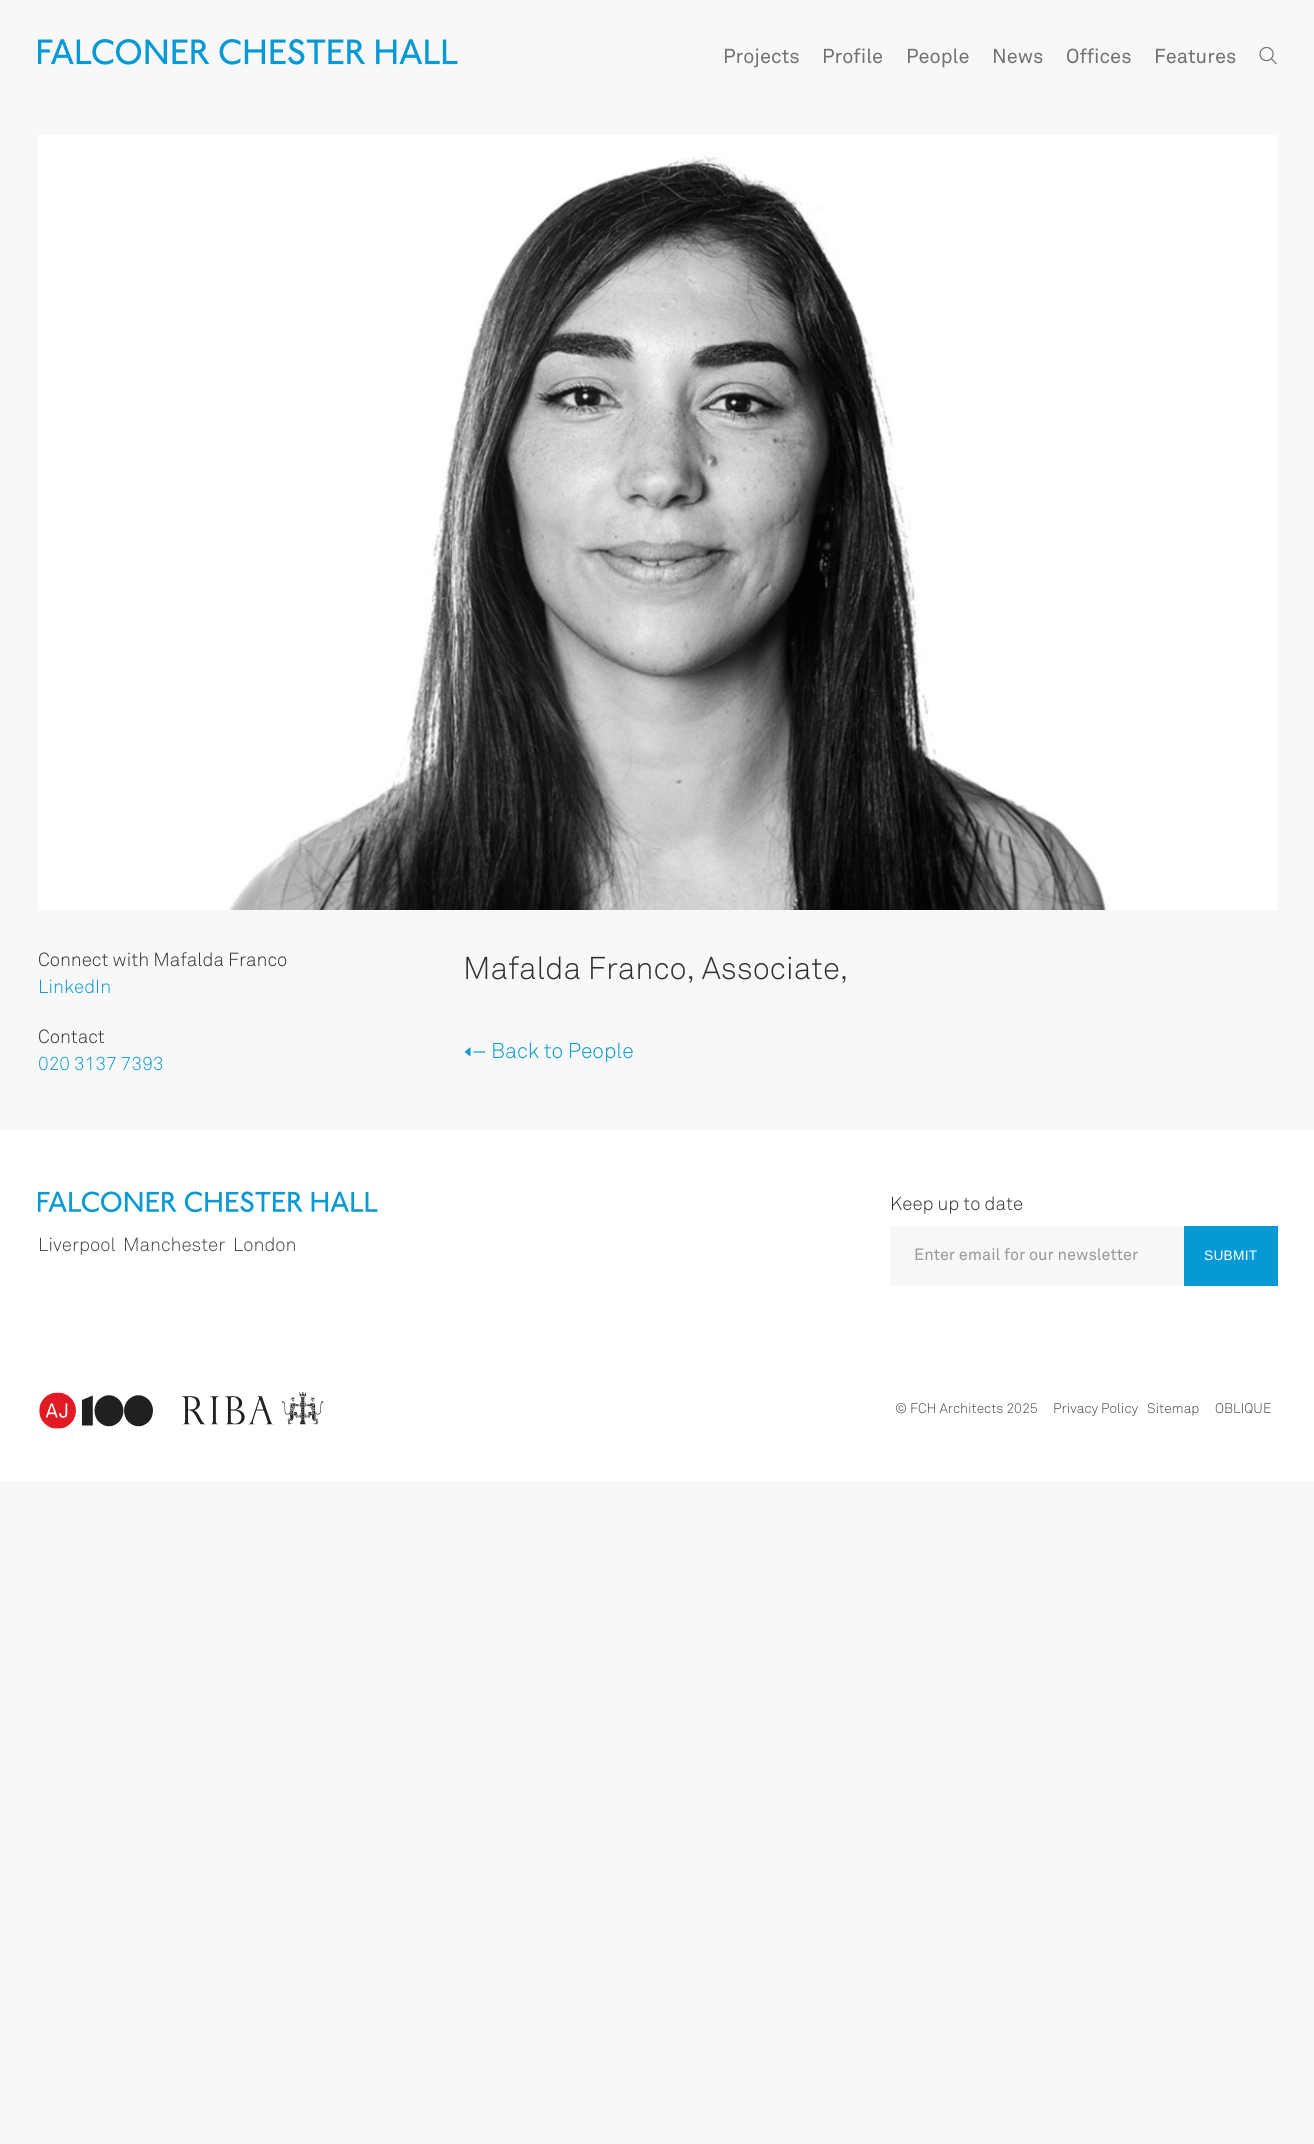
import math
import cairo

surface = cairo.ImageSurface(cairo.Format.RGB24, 1314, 2144)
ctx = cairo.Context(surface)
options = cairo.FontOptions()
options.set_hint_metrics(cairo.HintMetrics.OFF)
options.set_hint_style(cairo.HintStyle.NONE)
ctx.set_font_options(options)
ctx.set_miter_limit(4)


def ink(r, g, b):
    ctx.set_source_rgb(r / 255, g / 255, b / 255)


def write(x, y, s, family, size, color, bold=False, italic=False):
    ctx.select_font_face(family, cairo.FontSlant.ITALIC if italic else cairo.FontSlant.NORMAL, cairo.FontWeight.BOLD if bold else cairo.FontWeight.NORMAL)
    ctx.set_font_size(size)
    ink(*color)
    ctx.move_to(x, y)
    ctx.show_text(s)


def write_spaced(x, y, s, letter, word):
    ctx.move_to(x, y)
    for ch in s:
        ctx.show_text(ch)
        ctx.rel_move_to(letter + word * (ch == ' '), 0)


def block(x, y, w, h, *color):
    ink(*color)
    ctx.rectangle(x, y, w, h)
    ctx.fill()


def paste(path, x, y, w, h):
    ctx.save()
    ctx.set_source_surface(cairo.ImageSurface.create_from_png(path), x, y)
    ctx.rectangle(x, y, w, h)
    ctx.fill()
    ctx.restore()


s1 = dict(family="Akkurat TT", size=20, color=(113, 114, 114))
s2 = dict(family="Akkurat TT Light", size=18.75, color=(48, 48, 48))
s3 = dict(family="Akkurat TT Light", size=18.75, color=(5, 153, 214))
s4 = dict(family="Akkurat TT Light", size=31.25, color=(48, 48, 48))
s5 = dict(family="Akkurat TT Light", size=21.25, color=(5, 153, 214))
s6 = dict(family="Akkurat TT Light", size=18.75, color=(69, 66, 66))
s7 = dict(family="Akkurat TT", size=16.25, color=(153, 153, 153))
s8 = dict(family="Akkurat TT Light", size=13.75, color=(69, 66, 66))

ink(248, 248, 248)
ctx.paint()
paste("pic1.png", 38, 39, 420, 26)
write(723, 63, "Projects", **s1)
write(822, 63, "Profile", **s1)
write(906, 63, "People", **s1)
write(992, 63, "News", **s1)
write(1066, 63, "Offices", **s1)
write(1154, 63, "Features", **s1)
paste("pic2.png", 1259, 46, 18, 18)
paste("pic3.png", 38, 135, 1239, 775)
write(38, 966, "Connect with Mafalda Franco", **s2)
write(38, 993, "LinkedIn", **s3)
write(38, 1043, "Contact", **s2)
write(38, 1070, "020 3137 7393", **s3)
write(463, 979, "Mafalda Franco, Associate,", **s4)
ink(5, 153, 214)
ctx.set_fill_rule(cairo.FillRule.EVEN_ODD)
ctx.new_path()
ctx.move_to(464.5, 1052)
ctx.line_to(470.5, 1047)
ctx.line_to(470.5, 1056.5)
ctx.close_path()
ctx.fill()
ctx.new_path()
ctx.move_to(484.5, 1052)
ctx.line_to(474, 1052)
ctx.set_line_width(1.2)
ctx.set_line_cap(cairo.LineCap.SQUARE)
ctx.stroke()
write(491, 1058, "Back to People", **s5)
block(0, 1131, 1314, 350, 255, 255, 255)
paste("pic4.png", 38, 1191, 340, 22)
write(38, 1251, "Liverpool", **s6)
write(123, 1251, "Manchester", **s6)
write(233, 1251, "London", **s6)
write(890, 1210, "Keep up to date", **s2)
block(890, 1226, 294, 60, 248, 248, 248)
write(914, 1260, "Enter email for our newsletter", **s7)
block(1184, 1226, 94, 60, 5, 153, 214)
ctx.select_font_face("Liberation Sans")
ctx.set_font_size(13.75)
ink(255, 255, 255)
write_spaced(1204, 1260, "SUBMIT", 0.25, 0)
paste("pic5.png", 39, 1392, 114, 37)
paste("pic6.png", 182, 1392, 142, 33)
write(895, 1413, "© FCH Architects 2025", **s8)
write(1053, 1413, "Privacy Policy", **s8)
write(1147, 1413, "Sitemap", **s8)
write(1215, 1413, "OBLIQUE", **s8)
surface.write_to_png("screenshot.png")
